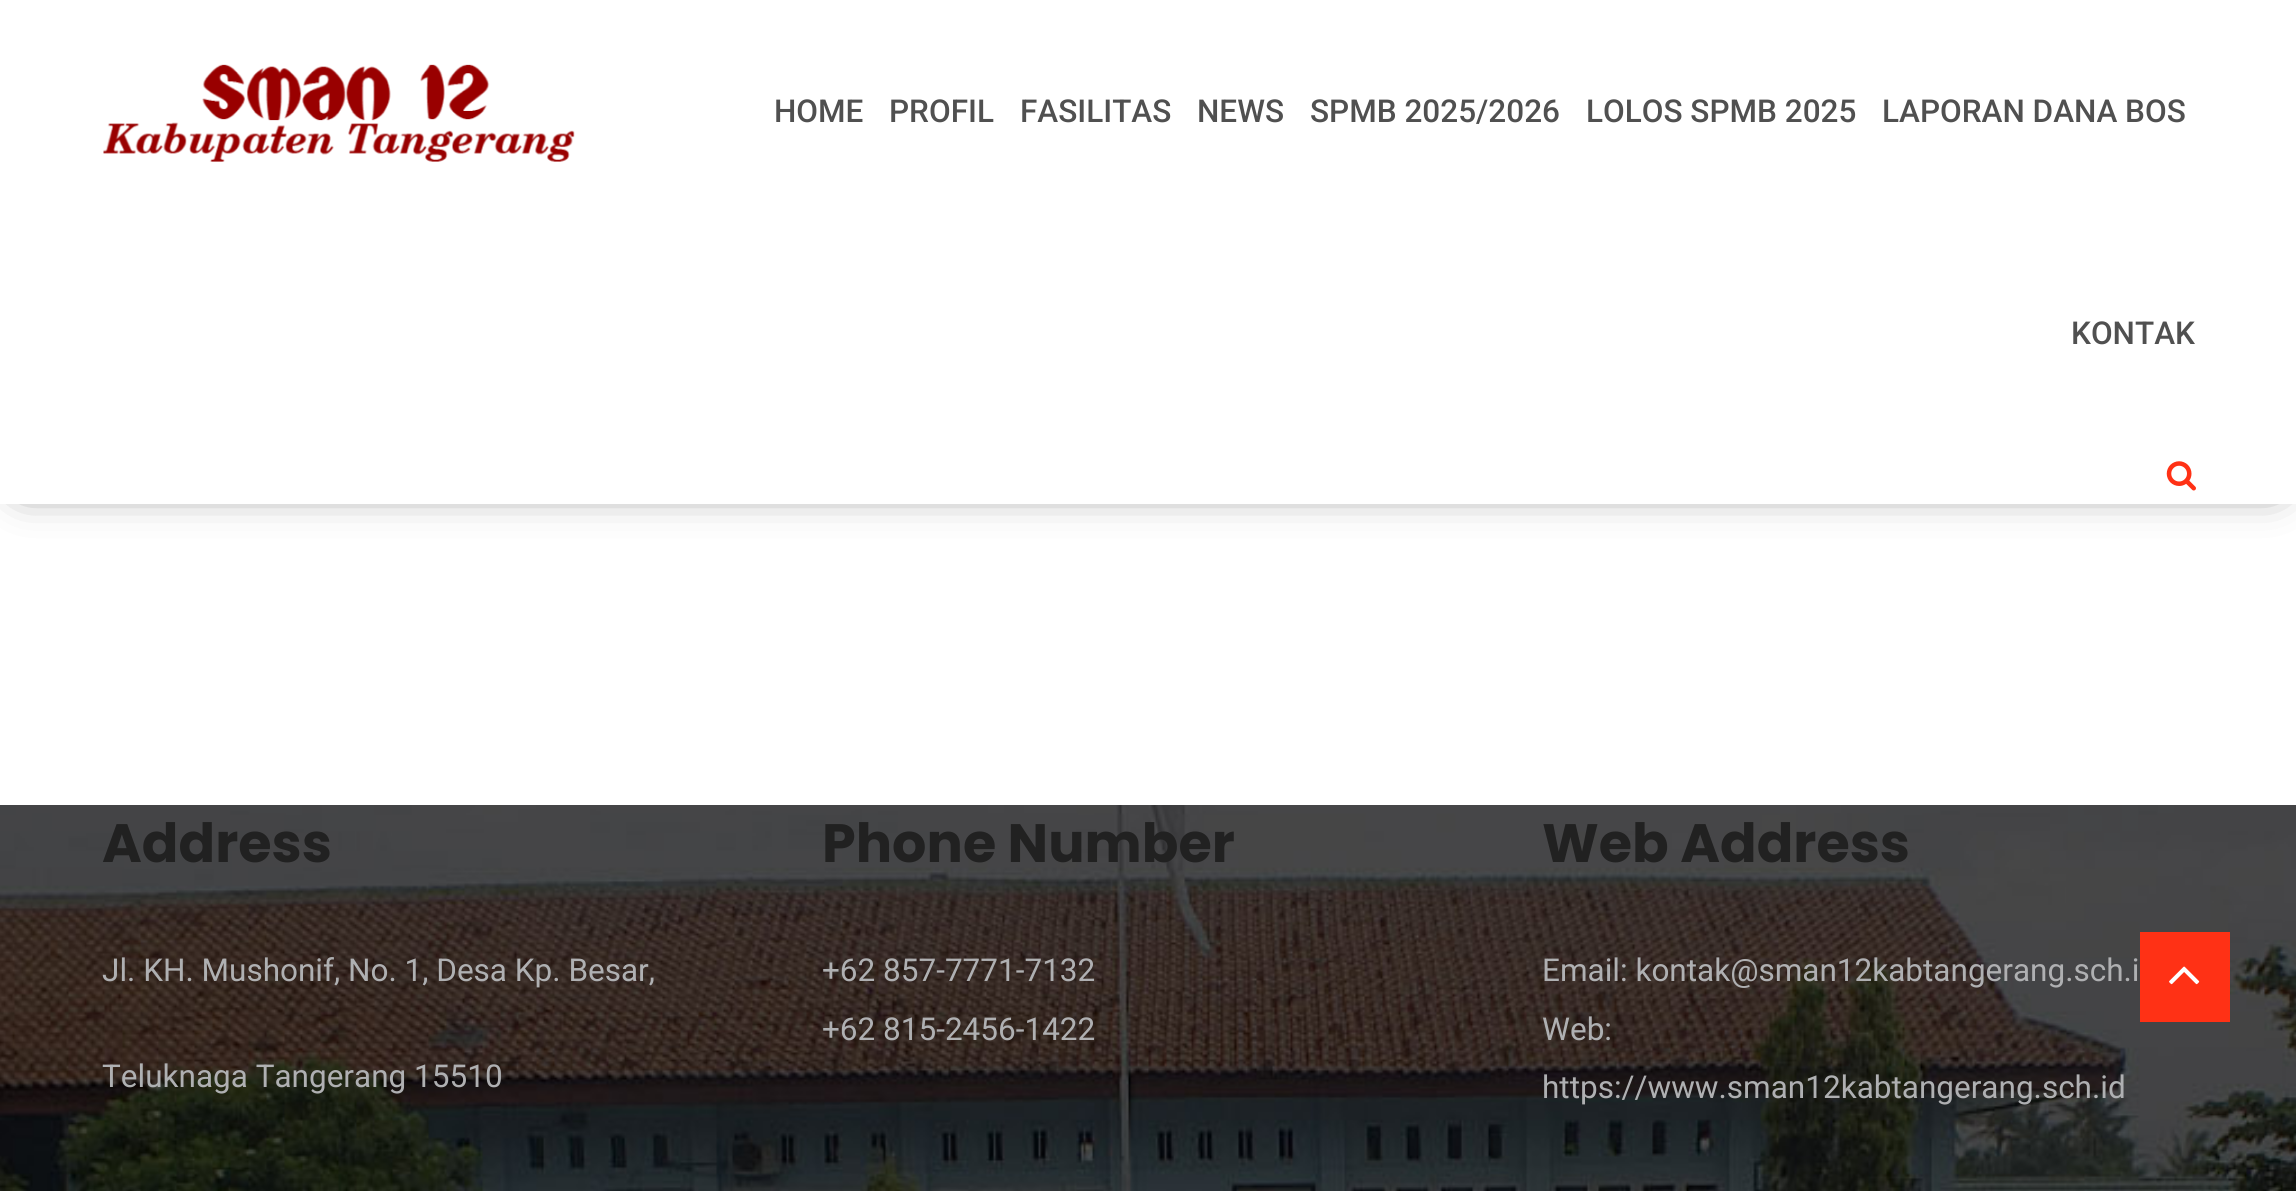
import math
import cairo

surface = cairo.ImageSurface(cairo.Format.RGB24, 2296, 1191)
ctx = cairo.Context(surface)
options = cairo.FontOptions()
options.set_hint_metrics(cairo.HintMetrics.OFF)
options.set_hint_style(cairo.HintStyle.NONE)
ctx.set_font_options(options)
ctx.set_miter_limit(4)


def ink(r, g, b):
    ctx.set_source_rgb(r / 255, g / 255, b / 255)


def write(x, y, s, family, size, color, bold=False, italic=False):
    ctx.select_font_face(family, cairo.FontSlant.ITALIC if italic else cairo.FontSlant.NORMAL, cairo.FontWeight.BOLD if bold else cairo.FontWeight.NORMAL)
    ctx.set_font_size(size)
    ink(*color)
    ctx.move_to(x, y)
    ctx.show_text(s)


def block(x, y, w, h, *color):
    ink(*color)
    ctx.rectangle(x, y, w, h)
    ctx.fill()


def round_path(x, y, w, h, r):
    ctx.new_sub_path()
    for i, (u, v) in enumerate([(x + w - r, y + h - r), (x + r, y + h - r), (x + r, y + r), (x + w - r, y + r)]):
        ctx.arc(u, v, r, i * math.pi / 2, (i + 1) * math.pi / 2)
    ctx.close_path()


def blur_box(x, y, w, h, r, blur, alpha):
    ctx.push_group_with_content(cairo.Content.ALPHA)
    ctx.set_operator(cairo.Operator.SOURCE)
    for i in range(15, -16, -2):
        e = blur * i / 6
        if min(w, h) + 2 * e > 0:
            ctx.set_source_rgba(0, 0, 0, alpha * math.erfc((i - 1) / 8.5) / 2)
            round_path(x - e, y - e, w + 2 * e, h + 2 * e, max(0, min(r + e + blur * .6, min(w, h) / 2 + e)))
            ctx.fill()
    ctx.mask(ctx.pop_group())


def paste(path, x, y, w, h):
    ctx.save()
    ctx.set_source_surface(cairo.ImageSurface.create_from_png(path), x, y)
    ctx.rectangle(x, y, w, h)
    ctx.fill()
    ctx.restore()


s1 = dict(family="Roboto Medium", size=31.5, color=(80, 80, 80))
s2 = dict(family="Poppins", size=54, color=(33, 33, 33), bold=True)
s3 = dict(family="Roboto", size=31.5, color=(175, 176, 178))

ink(255, 255, 255)
ctx.paint()
ink(0, 0, 0)
blur_box(23, 23, 2252, 459, 0, 22.5, 0.8)
block(0, 0, 2296, 504, 255, 255, 255)
paste("pic1.png", 103, 64, 472, 98)
write(774, 122, "HOME", **s1)
write(889, 122, "PROFIL", **s1)
write(1020, 122, "FASILITAS", **s1)
write(1197, 122, "NEWS", **s1)
write(1310, 122, "SPMB 2025/2026", **s1)
write(1586, 122, "LOLOS SPMB 2025", **s1)
write(1882, 122, "LAPORAN DANA BOS", **s1)
write(2071, 344, "KONTAK", **s1)
paste("pic2.png", 2166, 461, 30, 30)
paste("pic3.png", 0, 805, 2296, 386)
write(102, 862, "Address", **s2)
write(102, 981, "Jl. KH. Mushonif, No. 1, Desa Kp. Besar,", **s3)
write(102, 1087, "Teluknaga Tangerang 15510", **s3)
write(822, 862, "Phone Number", **s2)
write(822, 981, "+62 857-7771-7132", **s3)
write(822, 1040, "+62 815-2456-1422", **s3)
write(1542, 862, "Web Address", **s2)
write(1542, 981, "Email: kontak@sman12kabtangerang.sch.i", **s3)
write(1542, 1040, "Web:", **s3)
write(1542, 1098, "https://www.sman12kabtangerang.sch.id", **s3)
block(2140, 932, 90, 90, 255, 49, 21)
paste("pic4.png", 2169, 966, 31, 19)
surface.write_to_png("screenshot.png")
